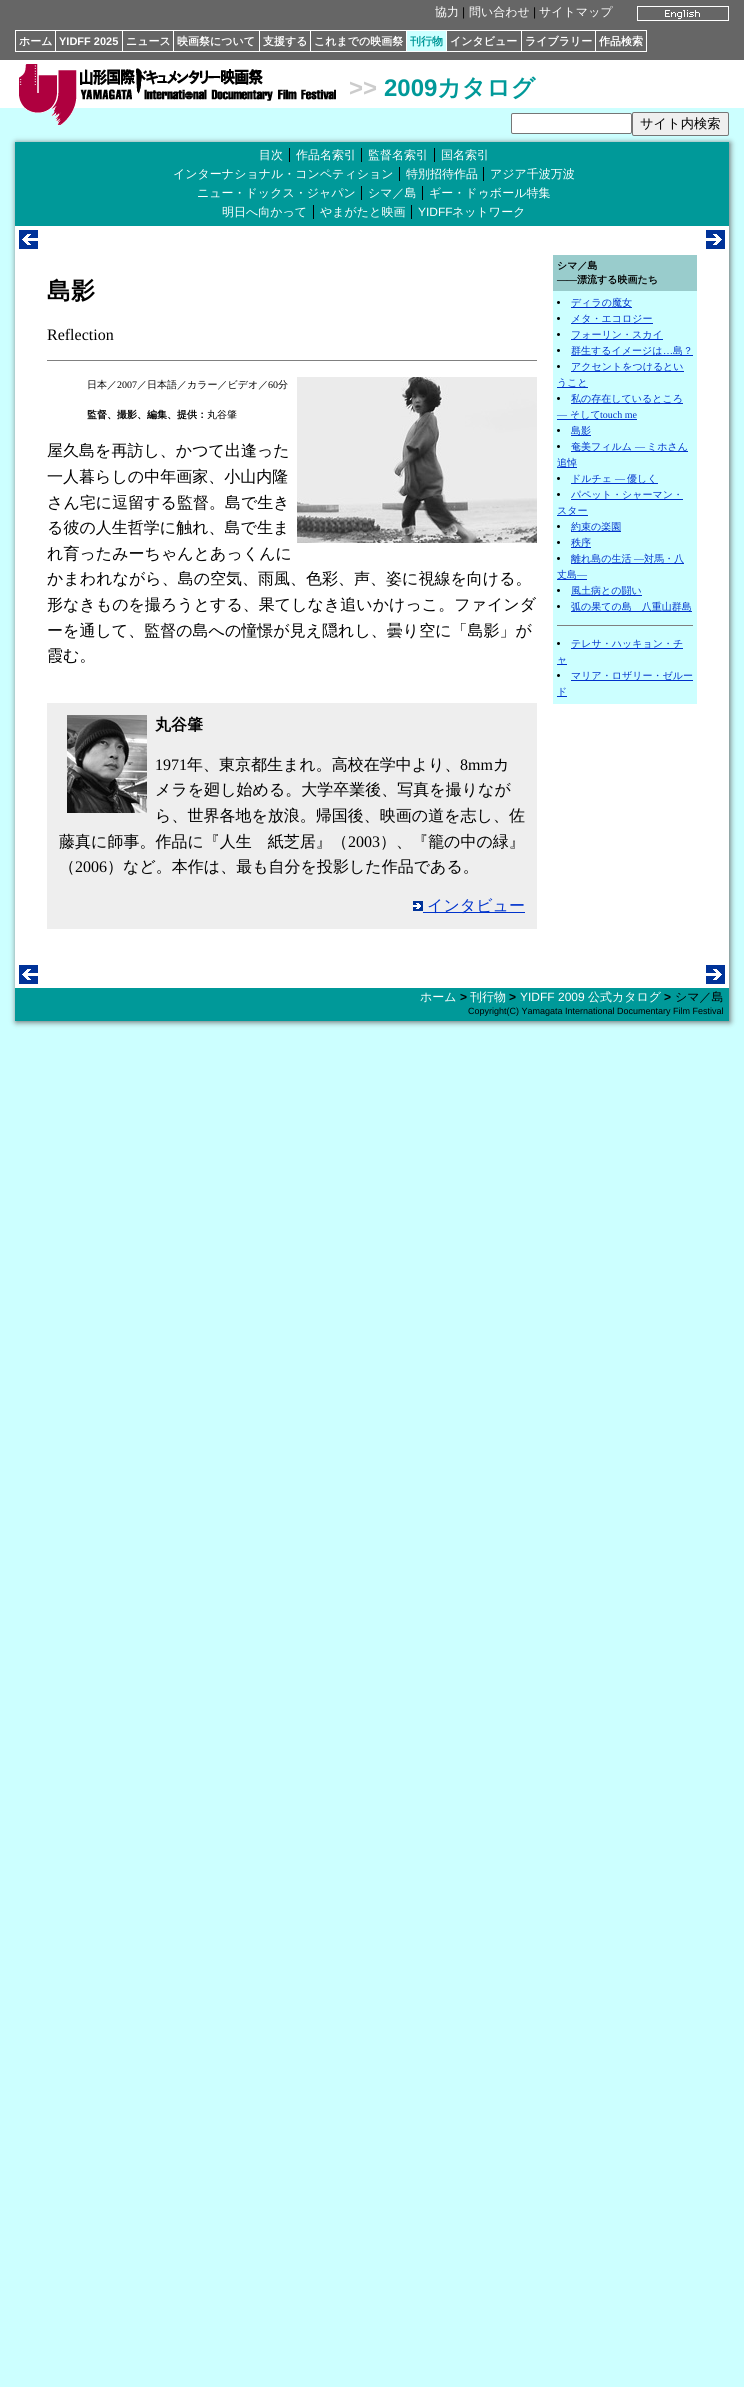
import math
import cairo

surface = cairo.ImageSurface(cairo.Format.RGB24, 744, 2387)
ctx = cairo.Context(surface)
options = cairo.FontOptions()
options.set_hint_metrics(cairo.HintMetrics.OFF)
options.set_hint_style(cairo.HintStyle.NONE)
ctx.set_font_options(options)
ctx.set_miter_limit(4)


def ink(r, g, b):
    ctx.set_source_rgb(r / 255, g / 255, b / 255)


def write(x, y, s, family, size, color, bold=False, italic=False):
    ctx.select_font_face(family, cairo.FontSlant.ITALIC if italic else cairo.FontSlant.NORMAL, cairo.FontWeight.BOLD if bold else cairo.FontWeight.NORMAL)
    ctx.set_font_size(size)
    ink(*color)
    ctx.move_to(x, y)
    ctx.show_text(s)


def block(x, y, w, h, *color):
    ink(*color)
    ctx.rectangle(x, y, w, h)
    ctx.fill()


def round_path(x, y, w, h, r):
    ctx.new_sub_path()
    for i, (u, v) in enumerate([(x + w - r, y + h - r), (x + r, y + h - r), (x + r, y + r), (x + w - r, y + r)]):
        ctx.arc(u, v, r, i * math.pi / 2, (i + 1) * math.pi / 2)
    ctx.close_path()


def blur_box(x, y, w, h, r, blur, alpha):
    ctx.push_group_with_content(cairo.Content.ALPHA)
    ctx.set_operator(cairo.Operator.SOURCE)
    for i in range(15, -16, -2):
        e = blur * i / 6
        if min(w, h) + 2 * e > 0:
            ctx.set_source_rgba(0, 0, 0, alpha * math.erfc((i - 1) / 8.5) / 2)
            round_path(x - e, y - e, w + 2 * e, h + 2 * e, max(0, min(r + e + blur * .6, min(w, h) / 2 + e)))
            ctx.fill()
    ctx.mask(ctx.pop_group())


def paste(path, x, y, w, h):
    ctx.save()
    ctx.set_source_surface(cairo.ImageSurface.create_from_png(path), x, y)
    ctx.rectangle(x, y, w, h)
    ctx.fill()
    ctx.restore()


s1 = dict(family="WenQuanYi Zen Hei Medium", size=12, color=(255, 255, 255))
s2 = dict(family="Liberation Sans", size=12, color=(0, 0, 0))
s3 = dict(family="WenQuanYi Zen Hei", size=11, color=(255, 255, 255), bold=True)
s4 = dict(family="Liberation Sans", size=11, color=(255, 255, 255), bold=True)
s5 = dict(family="WenQuanYi Zen Hei", size=11, color=(0, 153, 153), bold=True)
s6 = dict(family="Liberation Sans", size=24, color=(204, 204, 204), bold=True)
s7 = dict(family="Liberation Sans", size=24, color=(0, 153, 153), bold=True)
s8 = dict(family="WenQuanYi Zen Hei", size=24, color=(0, 153, 153), bold=True)
s9 = dict(family="WenQuanYi Zen Hei Medium", size=13.25, color=(0, 0, 0))
s10 = dict(family="Liberation Sans", size=12, color=(255, 255, 255))
s11 = dict(family="WenQuanYi Zen Hei", size=24, color=(0, 0, 0), bold=True)
s12 = dict(family="WenQuanYi Zen Hei", size=10, color=(0, 0, 0), bold=True)
s13 = dict(family="Liberation Serif", size=10, color=(0, 0, 0), bold=True)
s14 = dict(family="WenQuanYi Zen Hei Medium", size=10, color=(0, 51, 204))
s15 = dict(family="Liberation Serif", size=10, color=(0, 51, 204))
s16 = dict(family="Liberation Serif", size=16, color=(0, 0, 0))
s17 = dict(family="WenQuanYi Zen Hei Medium", size=10, color=(0, 0, 0))
s18 = dict(family="Liberation Serif", size=10, color=(0, 0, 0))
s19 = dict(family="WenQuanYi Zen Hei Medium", size=16, color=(0, 0, 0))
s20 = dict(family="WenQuanYi Zen Hei", size=16, color=(0, 0, 0), bold=True)
s21 = dict(family="WenQuanYi Zen Hei Medium", size=16, color=(0, 51, 204))
s22 = dict(family="Liberation Sans", size=12, color=(0, 0, 0), bold=True)
s23 = dict(family="WenQuanYi Zen Hei Medium", size=12, color=(0, 0, 0))
s24 = dict(family="Liberation Sans", size=9, color=(0, 0, 0))

ink(204, 255, 255)
ctx.paint()
block(0, 0, 744, 60, 102, 102, 102)
write(435, 16, "協力", **s1)
write(462, 16, "|", **s2)
write(469, 16, "問い合わせ", **s1)
write(533, 16, "|", **s2)
write(539, 16, "サイトマップ", **s1)
paste("pic1.png", 637, 6, 92, 15)
ctx.rectangle(15.5, 30.5, 40, 21)
ctx.set_line_width(1)
ctx.stroke()
write(19, 45, "ホーム", **s3)
write(59, 45, "YIDFF 2025", **s4)
block(56, 30, 591, 1, 255, 255, 255)
block(122, 30, 1, 22, 255, 255, 255)
block(56, 51, 67, 1, 255, 255, 255)
write(126, 45, "ニュース", **s3)
block(173, 30, 1, 22, 255, 255, 255)
block(123, 51, 51, 1, 255, 255, 255)
write(177, 45, "映画祭について", **s3)
block(259, 30, 1, 22, 255, 255, 255)
block(174, 51, 86, 1, 255, 255, 255)
write(263, 45, "支援する", **s3)
block(310, 30, 1, 22, 255, 255, 255)
block(260, 51, 51, 1, 255, 255, 255)
write(314, 45, "これまでの映画祭", **s3)
block(406, 30, 1, 22, 255, 255, 255)
block(311, 51, 96, 1, 255, 255, 255)
block(407, 31, 39, 20, 204, 255, 255)
write(410, 45, "刊行物", **s5)
block(446, 30, 1, 22, 255, 255, 255)
block(407, 51, 40, 1, 255, 255, 255)
write(450, 45, "インタビュー", **s3)
block(521, 30, 1, 22, 255, 255, 255)
block(447, 51, 75, 1, 255, 255, 255)
write(525, 45, "ライブラリー", **s3)
block(595, 30, 1, 22, 255, 255, 255)
block(522, 51, 74, 1, 255, 255, 255)
write(599, 45, "作品検索", **s3)
block(646, 30, 1, 22, 255, 255, 255)
block(596, 51, 51, 1, 255, 255, 255)
block(0, 60, 744, 48, 255, 255, 255)
paste("pic2.png", 19, 64, 317, 61)
write(349, 96, ">>", **s6)
write(384, 96, "2009", **s7)
write(437, 96, "カタログ", **s8)
ink(102, 102, 102)
blur_box(16, 143, 714, 879, 0, 3, 1)
ink(255, 255, 255)
round_path(511.5, 113.5, 120, 20, 1.5)
ctx.fill_preserve()
ink(118, 118, 118)
ctx.stroke()
ink(239, 239, 239)
round_path(632.5, 112.5, 96, 23, 1.5)
ctx.fill_preserve()
ink(118, 118, 118)
ctx.stroke()
write(640, 128, "サイト内検索", **s9)
block(15, 142, 714, 879, 0, 153, 153)
write(259, 159, "目次", **s1)
write(296, 159, "作品名索引", **s1)
block(289, 148, 1, 14, 0, 0, 0)
write(368, 159, "監督名索引", **s1)
block(361, 148, 1, 14, 0, 0, 0)
write(441, 159, "国名索引", **s1)
block(434, 148, 1, 14, 0, 0, 0)
write(173, 178, "インターナショナル・コンペティション", **s1)
write(406, 178, "特別招待作品", **s1)
block(399, 167, 1, 14, 0, 0, 0)
write(490, 178, "アジア千波万波", **s1)
block(483, 167, 1, 14, 0, 0, 0)
write(197, 197, "ニュー・ドックス・ジャパン", **s1)
write(368, 197, "シマ／島", **s1)
block(361, 186, 1, 14, 0, 0, 0)
write(429, 197, "ギー・ドゥボール特集", **s1)
block(422, 186, 1, 14, 0, 0, 0)
write(222, 216, "明日へ向かって", **s1)
write(320, 216, "やまがたと映画", **s1)
block(313, 205, 1, 14, 0, 0, 0)
write(418, 216, "YIDFF", **s10)
block(411, 205, 1, 14, 0, 0, 0)
write(452, 216, "ネットワーク", **s1)
block(15, 226, 714, 762, 255, 255, 255)
paste("pic3.png", 19, 230, 19, 19)
paste("pic4.png", 706, 230, 19, 19)
write(47, 299, "島影", **s11)
block(553, 255, 144, 36, 153, 204, 204)
write(557, 269, "シマ／島", **s12)
write(557, 283, "――", **s13)
write(577, 283, "漂流する映画たち", **s12)
block(553, 291, 144, 413, 204, 255, 255)
ink(0, 0, 0)
ctx.new_path()
ctx.arc(558.5, 302.5, 1.5, 0, 2 * math.pi)
ctx.fill()
block(571, 307, 61, 1, 0, 51, 204)
write(571, 306, "ディラの魔女", **s14)
ink(0, 0, 0)
ctx.new_path()
ctx.arc(558.5, 318.5, 1.5, 0, 2 * math.pi)
ctx.fill()
block(571, 323, 82, 1, 0, 51, 204)
write(571, 322, "メタ・エコロジー", **s14)
ink(0, 0, 0)
ctx.new_path()
ctx.arc(558.5, 334.5, 1.5, 0, 2 * math.pi)
ctx.fill()
block(571, 339, 92, 1, 0, 51, 204)
write(571, 338, "フォーリン・スカイ", **s14)
ink(0, 0, 0)
ctx.new_path()
ctx.arc(558.5, 350.5, 1.5, 0, 2 * math.pi)
ctx.fill()
block(571, 355, 122, 1, 0, 51, 204)
write(571, 354, "群生するイメージは", **s14)
write(673, 354, "島？", **s14)
write(663, 354, "…", **s15)
ink(0, 0, 0)
ctx.new_path()
ctx.arc(558.5, 366.5, 1.5, 0, 2 * math.pi)
ctx.fill()
block(571, 371, 113, 1, 0, 51, 204)
write(571, 370, "アクセントをつけるとい", **s14)
block(557, 387, 31, 1, 0, 51, 204)
write(557, 386, "うこと", **s14)
ink(0, 0, 0)
ctx.new_path()
ctx.arc(558.5, 398.5, 1.5, 0, 2 * math.pi)
ctx.fill()
block(571, 403, 112, 1, 0, 51, 204)
write(571, 402, "私の存在しているところ", **s14)
write(557, 418, "―", **s15)
block(557, 419, 80, 1, 0, 51, 204)
write(570, 418, "そして", **s14)
write(600, 418, "touch me", **s15)
ink(0, 0, 0)
ctx.new_path()
ctx.arc(558.5, 430.5, 1.5, 0, 2 * math.pi)
ctx.fill()
block(571, 435, 20, 1, 0, 51, 204)
write(571, 434, "島影", **s14)
ink(0, 0, 0)
ctx.new_path()
ctx.arc(558.5, 446.5, 1.5, 0, 2 * math.pi)
ctx.fill()
block(571, 451, 117, 1, 0, 51, 204)
write(571, 450, "奄美フィルム", **s14)
write(635, 450, "―", **s15)
write(647, 450, "ミホさん", **s14)
block(557, 467, 20, 1, 0, 51, 204)
write(557, 466, "追悼", **s14)
ink(0, 0, 0)
ctx.new_path()
ctx.arc(558.5, 478.5, 1.5, 0, 2 * math.pi)
ctx.fill()
block(571, 483, 87, 1, 0, 51, 204)
write(571, 482, "ドルチェ", **s14)
write(615, 482, "―", **s15)
write(627, 482, "優しく", **s14)
ink(0, 0, 0)
ctx.new_path()
ctx.arc(558.5, 494.5, 1.5, 0, 2 * math.pi)
ctx.fill()
block(571, 499, 112, 1, 0, 51, 204)
write(571, 498, "パペット・シャーマン・", **s14)
block(557, 515, 31, 1, 0, 51, 204)
write(557, 514, "スター", **s14)
ink(0, 0, 0)
ctx.new_path()
ctx.arc(558.5, 526.5, 1.5, 0, 2 * math.pi)
ctx.fill()
block(571, 531, 50, 1, 0, 51, 204)
write(571, 530, "約束の楽園", **s14)
ink(0, 0, 0)
ctx.new_path()
ctx.arc(558.5, 542.5, 1.5, 0, 2 * math.pi)
ctx.fill()
block(571, 547, 20, 1, 0, 51, 204)
write(571, 546, "秩序", **s14)
ink(0, 0, 0)
ctx.new_path()
ctx.arc(558.5, 558.5, 1.5, 0, 2 * math.pi)
ctx.fill()
block(571, 563, 113, 1, 0, 51, 204)
write(571, 562, "離れ島の生活", **s14)
write(634, 562, "―", **s15)
write(644, 562, "対馬・八", **s14)
block(557, 579, 30, 1, 0, 51, 204)
write(557, 578, "丈島", **s14)
write(577, 578, "―", **s15)
ink(0, 0, 0)
ctx.new_path()
ctx.arc(558.5, 590.5, 1.5, 0, 2 * math.pi)
ctx.fill()
block(571, 595, 71, 1, 0, 51, 204)
write(571, 594, "風土病との闘い", **s14)
ink(0, 0, 0)
ctx.new_path()
ctx.arc(558.5, 606.5, 1.5, 0, 2 * math.pi)
ctx.fill()
block(571, 611, 121, 1, 0, 51, 204)
write(571, 610, "弧の果ての島　八重山群島", **s14)
block(557, 625, 136, 1, 128, 128, 128)
ink(0, 0, 0)
ctx.new_path()
ctx.arc(558.5, 643.5, 1.5, 0, 2 * math.pi)
ctx.fill()
block(571, 648, 112, 1, 0, 51, 204)
write(571, 647, "テレサ・ハッキョン・チ", **s14)
block(557, 664, 10, 1, 0, 51, 204)
write(557, 663, "ャ", **s14)
ink(0, 0, 0)
ctx.new_path()
ctx.arc(558.5, 675.5, 1.5, 0, 2 * math.pi)
ctx.fill()
block(571, 680, 122, 1, 0, 51, 204)
write(571, 679, "マリア・ロザリー・ゼルー", **s14)
block(557, 696, 10, 1, 0, 51, 204)
write(557, 695, "ド", **s14)
write(47, 340, "Reflection", **s16)
block(47, 360, 490, 1, 128, 128, 128)
write(87, 388, "日本／", **s17)
write(117, 388, "2007", **s18)
write(137, 388, "／日本語／カラー／ビデオ／", **s17)
write(268, 388, "60", **s18)
write(278, 388, "分", **s17)
paste("pic5.png", 297, 377, 240, 166)
write(87, 418, "監督、撮影、編集、提供：", **s12)
write(207, 418, "丸谷肇", **s17)
write(47, 456, "屋久島を再訪し、かつて出逢った", **s19)
write(47, 482, "一人暮らしの中年画家、小山内隆", **s19)
write(47, 508, "さん宅に逗留する監督。島で生き", **s19)
write(47, 533, "る彼の人生哲学に触れ、島で生ま", **s19)
write(47, 559, "れ育ったみーちゃんとあっくんに", **s19)
write(47, 584, "かまわれながら、島の空気、雨風、色彩、声、姿に視線を向ける。", **s19)
write(47, 610, "形なきものを撮ろうとする、果てしなき追いかけっこ。ファインダ", **s19)
write(47, 636, "ーを通して、監督の島への憧憬が見え隠れし、曇り空に「島影」が", **s19)
write(47, 661, "霞む。", **s19)
block(47, 703, 490, 226, 238, 238, 238)
paste("pic6.png", 67, 715, 80, 98)
write(155, 730, "丸谷肇", **s20)
write(155, 770, "1971", **s16)
write(187, 770, "年、東京都生まれ。高校在学中より、", **s19)
write(460, 770, "8mm", **s16)
write(493, 770, "カ", **s19)
write(155, 795, "メラを廻し始める。大学卒業後、写真を撮りなが", **s19)
write(155, 821, "ら、世界各地を放浪。帰国後、映画の道を志し、佐", **s19)
write(59, 847, "藤真に師事。作品に『人生　紙芝居』（", **s19)
write(348, 847, "2003", **s16)
write(380, 847, "）、『籠の中の緑』", **s19)
write(59, 872, "（", **s19)
write(75, 872, "2006", **s16)
write(107, 872, "）など。本作は、最も自分を投影した作品である。", **s19)
paste("pic7.png", 413, 901, 10, 10)
block(423, 912, 102, 1, 0, 51, 204)
write(427, 911, "インタビュー", **s21)
paste("pic3.png", 19, 965, 19, 19)
paste("pic4.png", 706, 965, 19, 19)
write(420, 1001, "ホーム", **s1)
write(460, 1001, ">", **s22)
write(470, 1001, "刊行物", **s1)
write(509, 1001, ">", **s22)
write(520, 1001, "YIDFF 2009", **s10)
write(588, 1001, "公式カタログ", **s1)
write(664, 1001, ">", **s22)
write(675, 1001, "シマ／島", **s23)
write(468, 1014, "Copyright(C) Yamagata International Documentary Film Festival", **s24)
surface.write_to_png("screenshot.png")
